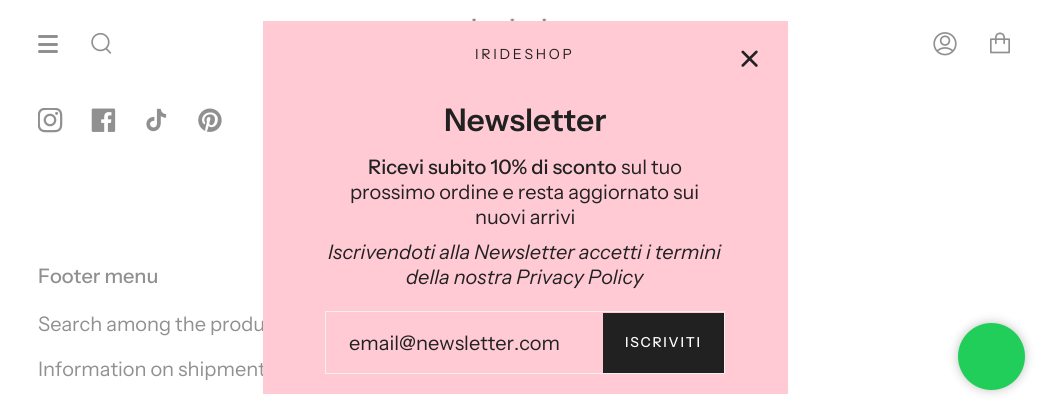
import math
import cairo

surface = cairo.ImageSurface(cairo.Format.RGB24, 1049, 415)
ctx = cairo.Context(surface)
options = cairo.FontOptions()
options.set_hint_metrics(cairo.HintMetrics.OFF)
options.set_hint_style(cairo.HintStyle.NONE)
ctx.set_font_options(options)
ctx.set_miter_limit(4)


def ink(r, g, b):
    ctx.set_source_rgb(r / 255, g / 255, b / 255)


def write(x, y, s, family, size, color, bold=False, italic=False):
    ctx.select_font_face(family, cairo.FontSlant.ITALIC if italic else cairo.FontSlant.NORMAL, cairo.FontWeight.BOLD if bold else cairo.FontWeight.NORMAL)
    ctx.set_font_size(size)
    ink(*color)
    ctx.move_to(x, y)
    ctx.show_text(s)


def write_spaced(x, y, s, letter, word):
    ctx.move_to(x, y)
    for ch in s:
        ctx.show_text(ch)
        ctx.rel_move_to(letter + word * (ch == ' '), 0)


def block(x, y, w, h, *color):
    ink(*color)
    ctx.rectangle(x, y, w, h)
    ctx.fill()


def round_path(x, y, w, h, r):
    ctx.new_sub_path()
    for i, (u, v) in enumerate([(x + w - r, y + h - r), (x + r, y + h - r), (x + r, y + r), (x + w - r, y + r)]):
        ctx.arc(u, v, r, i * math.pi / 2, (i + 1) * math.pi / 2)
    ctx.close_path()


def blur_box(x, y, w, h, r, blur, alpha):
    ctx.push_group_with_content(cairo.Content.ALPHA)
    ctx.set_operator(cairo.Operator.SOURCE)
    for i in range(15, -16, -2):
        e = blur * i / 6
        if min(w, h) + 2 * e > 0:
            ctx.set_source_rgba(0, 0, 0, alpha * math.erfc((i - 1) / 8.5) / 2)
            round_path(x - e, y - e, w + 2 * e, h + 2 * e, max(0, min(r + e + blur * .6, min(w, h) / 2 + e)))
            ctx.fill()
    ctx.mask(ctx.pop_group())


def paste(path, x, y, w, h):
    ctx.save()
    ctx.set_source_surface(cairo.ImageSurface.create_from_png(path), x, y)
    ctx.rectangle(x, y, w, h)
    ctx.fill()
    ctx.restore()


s1 = dict(family="Instrument Sans Medium", size=20, color=(144, 144, 144))
s2 = dict(family="Instrument Sans", size=20, color=(144, 144, 144))
s3 = dict(family="Instrument Sans SemiBold", size=31.25, color=(33, 33, 33))
s4 = dict(family="Instrument Sans Medium", size=20, color=(33, 33, 33))
s5 = dict(family="Instrument Sans", size=20, color=(33, 33, 33))
s6 = dict(family="Instrument Sans", size=20, color=(33, 33, 33), italic=True)

ink(255, 255, 255)
ctx.paint()
paste("pic1.png", 472, 18, 75, 3)
ink(144, 144, 144)
round_path(38, 35, 20, 3, 1.5)
ctx.fill()
round_path(38, 43, 20, 3, 1.5)
ctx.fill()
round_path(38, 50, 20, 3, 1.5)
ctx.fill()
paste("pic2.png", 91, 32, 21, 22)
paste("pic3.png", 933, 32, 24, 24)
paste("pic4.png", 990, 32, 20, 22)
paste("pic5.png", 38, 108, 25, 25)
paste("pic6.png", 91, 108, 25, 24)
paste("pic7.png", 146, 108, 21, 24)
paste("pic8.png", 198, 108, 24, 24)
write(38, 283, "Footer menu", **s1)
write(38, 331, "Search among the produ", **s2)
write(38, 376, "Information on shipment", **s2)
block(263, 21, 525, 373, 255, 202, 212)
ctx.set_font_size(14)
ink(33, 33, 33)
write_spaced(475, 59, "IRIDESHOP", 2.75, 0)
write(444, 131, "Newsletter", **s3)
write(368, 174, "Ricevi subito 10% di sconto", **s4)
write(621, 174, "sul tuo", **s5)
write(350, 199, "prossimo ordine e resta aggiornato sui", **s5)
write(475, 224, "nuovi arrivi", **s5)
write(328, 259, "Iscrivendoti alla Newsletter accetti i termini", **s6)
write(406, 284, "della nostra Privacy Policy", **s6)
ctx.rectangle(325.5, 311.5, 399, 62)
ink(240, 240, 240)
ctx.set_line_width(1)
ctx.stroke()
write(349, 350, "email@newsletter.com", **s5)
block(603, 313, 121, 60, 33, 33, 33)
ctx.select_font_face("Instrument Sans Medium")
ctx.set_font_size(13.75)
ink(255, 255, 255)
write_spaced(625, 347, "ISCRIVITI", 1.75, 0)
paste("pic9.png", 741, 50, 17, 17)
ink(194, 194, 194)
blur_box(958, 323, 67, 67, 33.5, 5, 1)
ink(34, 206, 90)
ctx.arc(991.5, 356.5, 33.5, 0, 2 * math.pi)
ctx.fill()
surface.write_to_png("screenshot.png")
